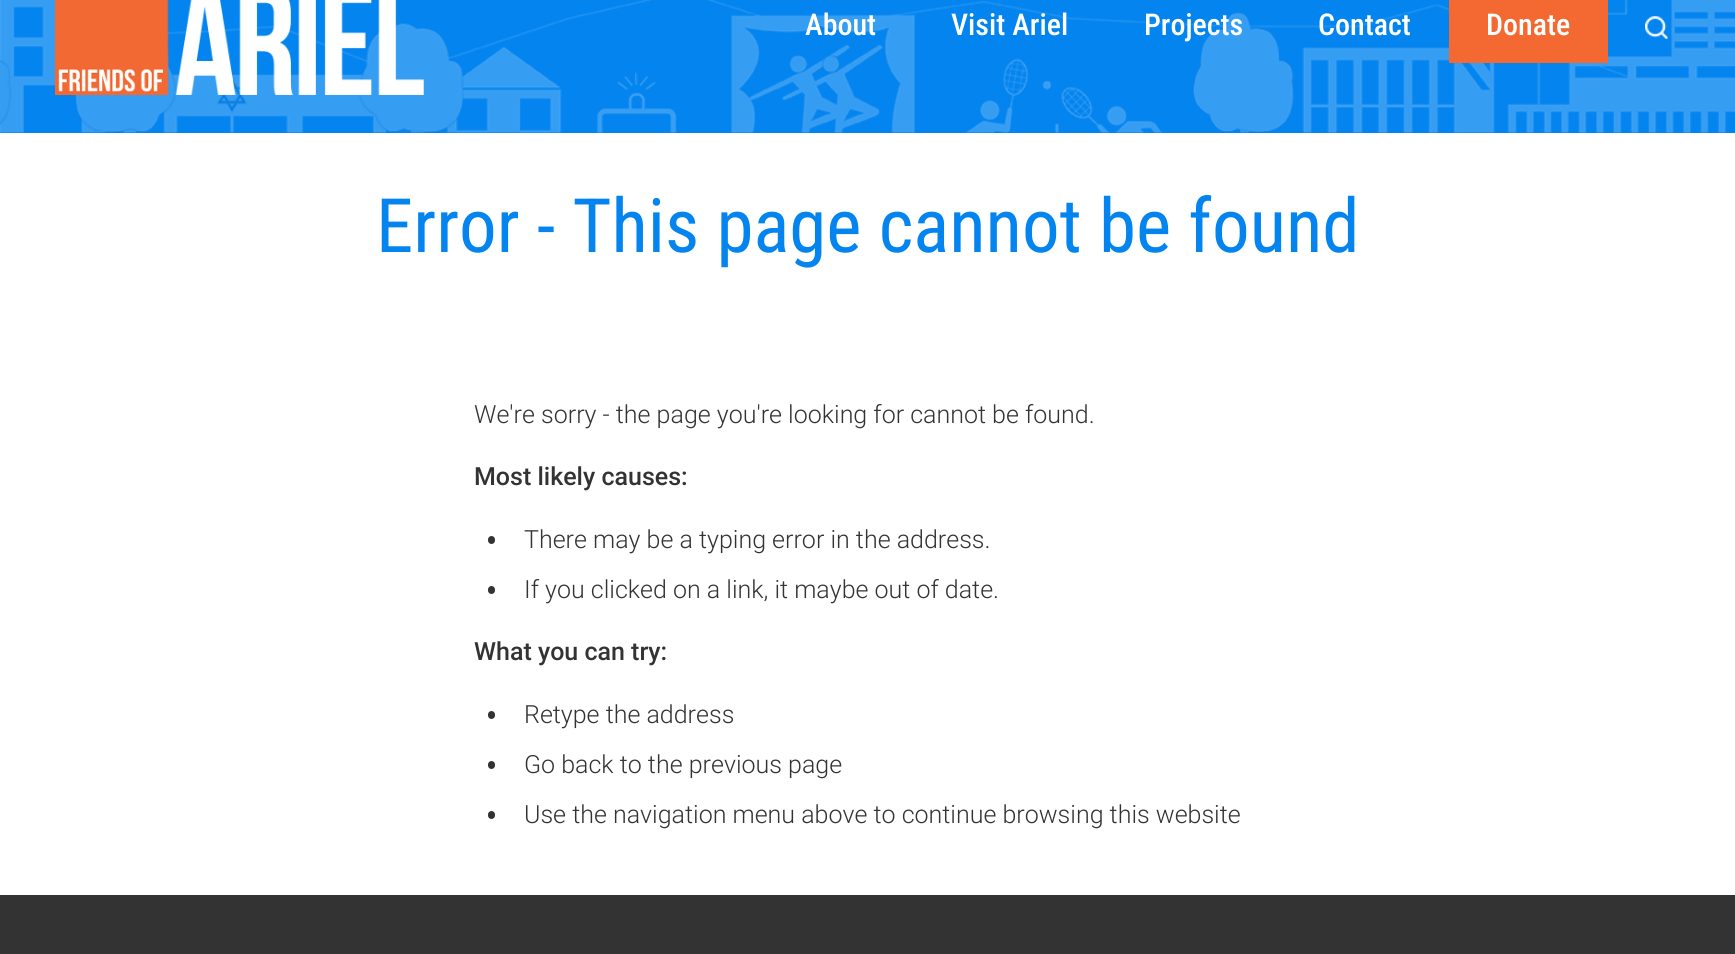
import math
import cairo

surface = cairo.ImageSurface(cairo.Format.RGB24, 1735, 954)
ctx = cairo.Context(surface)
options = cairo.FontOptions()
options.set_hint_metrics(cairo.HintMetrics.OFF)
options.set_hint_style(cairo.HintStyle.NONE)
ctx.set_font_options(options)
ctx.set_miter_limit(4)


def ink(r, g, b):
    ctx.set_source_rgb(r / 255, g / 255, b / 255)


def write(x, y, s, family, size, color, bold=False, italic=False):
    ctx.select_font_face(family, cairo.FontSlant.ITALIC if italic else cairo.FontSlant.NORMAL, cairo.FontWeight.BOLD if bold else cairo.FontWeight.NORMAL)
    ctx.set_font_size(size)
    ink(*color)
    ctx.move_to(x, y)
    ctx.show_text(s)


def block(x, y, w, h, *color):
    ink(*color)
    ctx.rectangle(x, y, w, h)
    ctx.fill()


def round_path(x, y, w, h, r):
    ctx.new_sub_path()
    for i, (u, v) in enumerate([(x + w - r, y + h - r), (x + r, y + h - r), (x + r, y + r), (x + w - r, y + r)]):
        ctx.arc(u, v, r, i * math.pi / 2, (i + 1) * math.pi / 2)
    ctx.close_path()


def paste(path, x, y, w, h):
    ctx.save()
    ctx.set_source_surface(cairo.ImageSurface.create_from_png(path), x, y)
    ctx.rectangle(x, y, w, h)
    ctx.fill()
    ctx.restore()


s1 = dict(family="Roboto Condensed Medium", size=30, color=(255, 255, 255))
s2 = dict(family="Roboto Condensed", size=75, color=(3, 132, 239))
s3 = dict(family="Roboto Light", size=25, color=(51, 51, 51))
s4 = dict(family="Roboto Medium", size=25, color=(51, 51, 51))

ink(51, 51, 51)
ctx.paint()
block(0, 0, 1735, 133, 3, 132, 239)
paste("pic1.png", 0, 0, 1735, 133)
paste("pic2.png", 55, 0, 369, 95)
write(805, 35, "About", **s1)
write(951, 35, "Visit Ariel", **s1)
write(1144, 35, "Projects", **s1)
write(1318, 35, "Contact", **s1)
block(1449, 0, 159, 63, 244, 105, 50)
write(1486, 35, "Donate", **s1)
paste("pic3.png", 1645, 16, 23, 23)
block(0, 133, 1735, 762, 255, 255, 255)
write(376, 252, "Error - This page cannot be found", **s2)
write(474, 423, "We're sorry - the page you're looking for cannot be found.", **s3)
write(474, 485, "Most likely causes:", **s4)
round_path(488, 536, 7, 8, 3.5)
ctx.fill()
write(524, 548, "There may be a typing error in the address.", **s3)
round_path(488, 586, 7, 8, 3.5)
ctx.fill()
write(524, 598, "If you clicked on a link, it maybe out of date.", **s3)
write(474, 660, "What you can try:", **s4)
round_path(488, 711, 7, 8, 3.5)
ctx.fill()
write(524, 723, "Retype the address", **s3)
round_path(488, 761, 7, 8, 3.5)
ctx.fill()
write(524, 773, "Go back to the previous page", **s3)
round_path(488, 811, 7, 8, 3.5)
ctx.fill()
write(524, 823, "Use the navigation menu above to continue browsing this website", **s3)
surface.write_to_png("screenshot.png")
